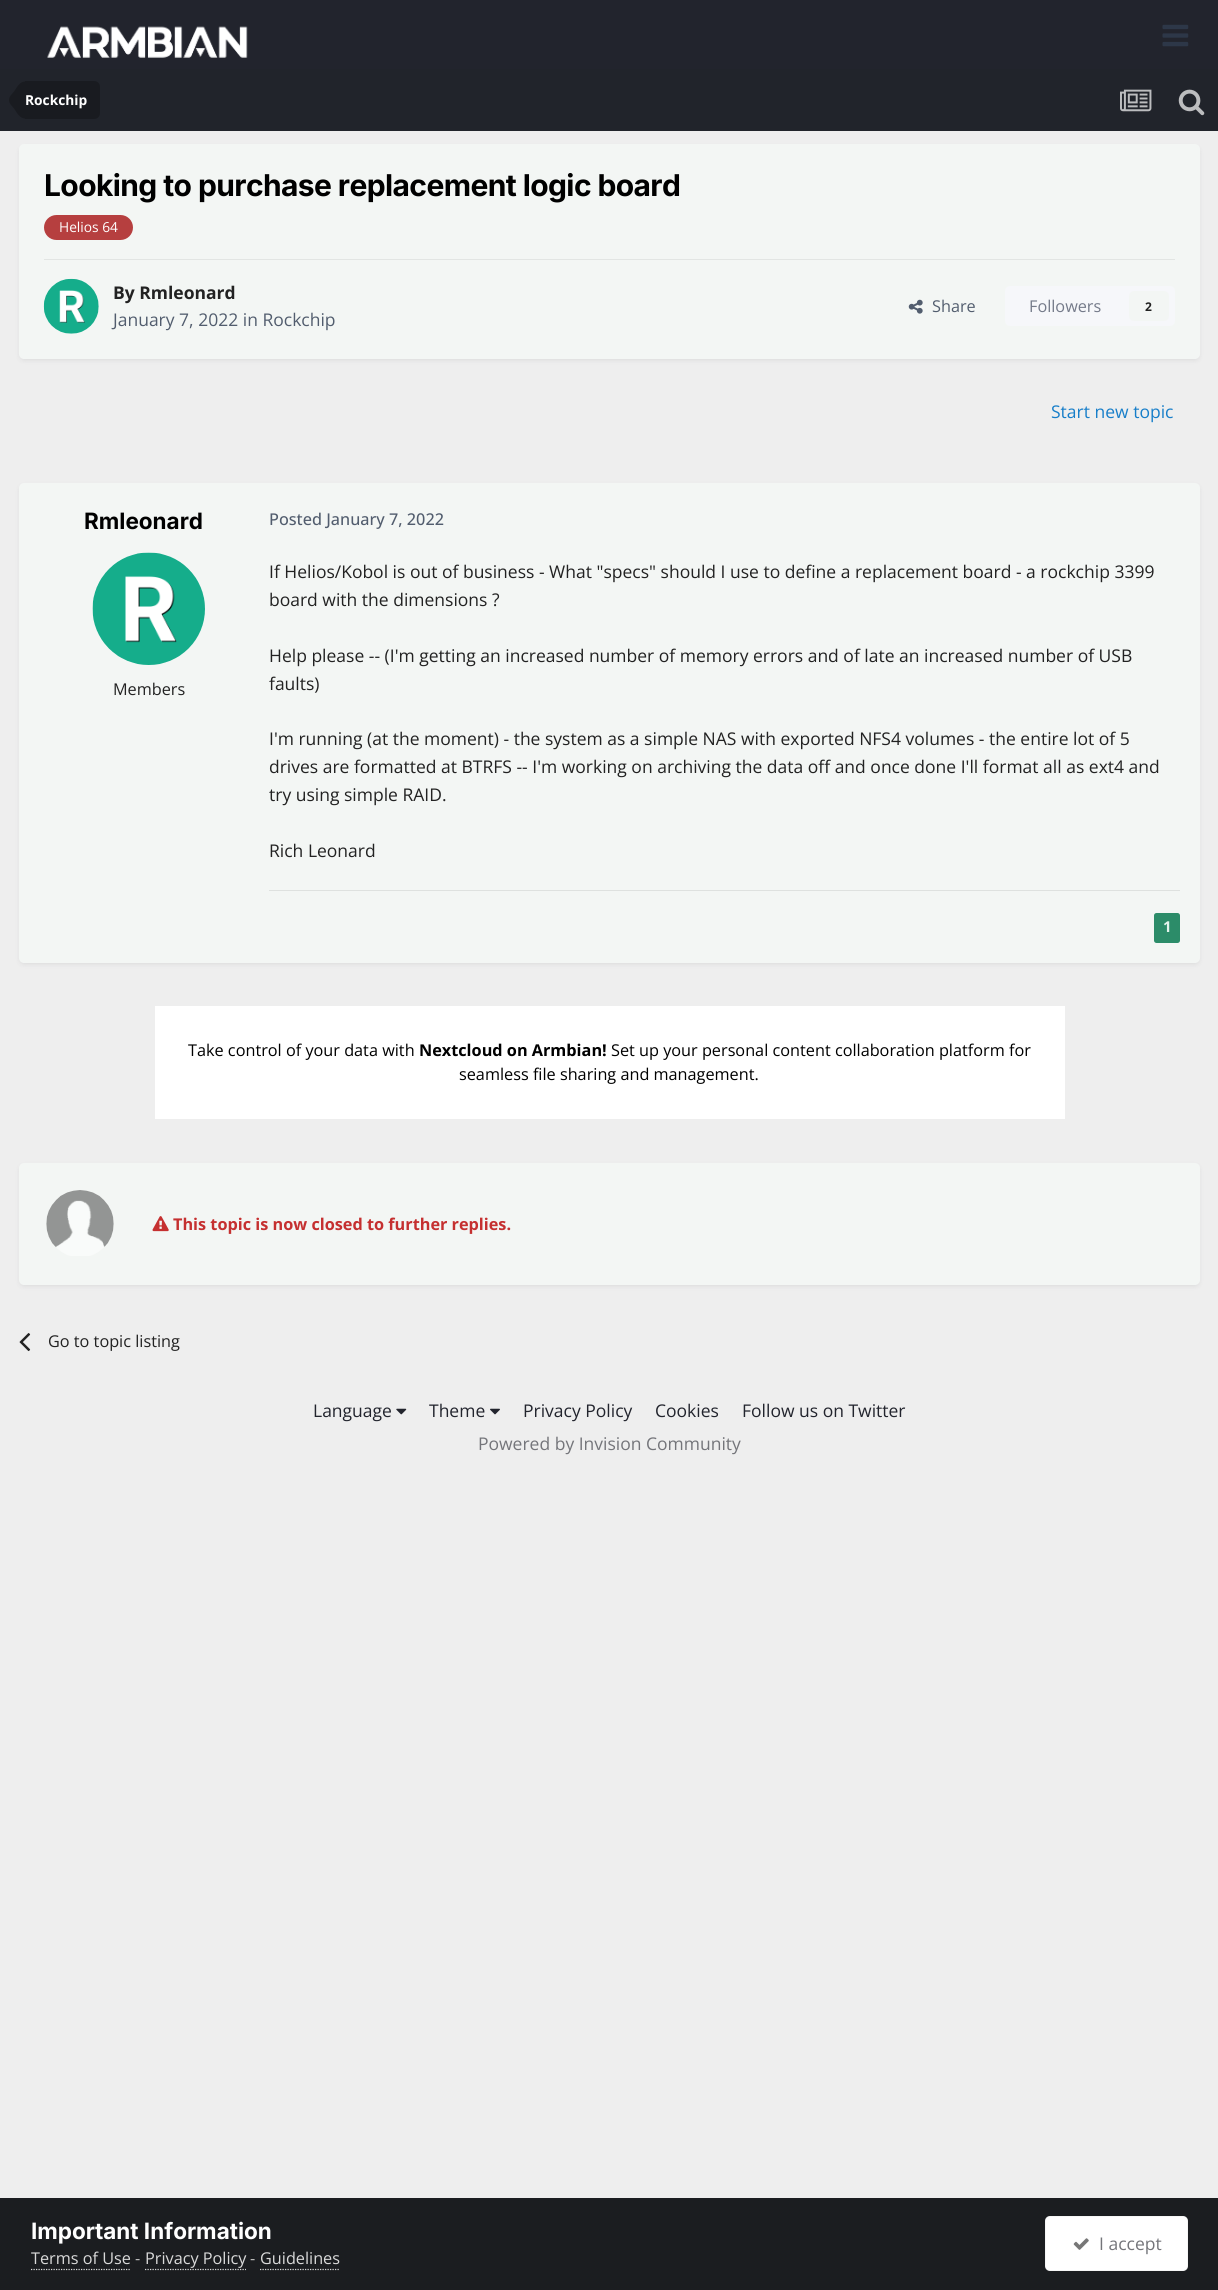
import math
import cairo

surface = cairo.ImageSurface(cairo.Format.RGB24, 1218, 2290)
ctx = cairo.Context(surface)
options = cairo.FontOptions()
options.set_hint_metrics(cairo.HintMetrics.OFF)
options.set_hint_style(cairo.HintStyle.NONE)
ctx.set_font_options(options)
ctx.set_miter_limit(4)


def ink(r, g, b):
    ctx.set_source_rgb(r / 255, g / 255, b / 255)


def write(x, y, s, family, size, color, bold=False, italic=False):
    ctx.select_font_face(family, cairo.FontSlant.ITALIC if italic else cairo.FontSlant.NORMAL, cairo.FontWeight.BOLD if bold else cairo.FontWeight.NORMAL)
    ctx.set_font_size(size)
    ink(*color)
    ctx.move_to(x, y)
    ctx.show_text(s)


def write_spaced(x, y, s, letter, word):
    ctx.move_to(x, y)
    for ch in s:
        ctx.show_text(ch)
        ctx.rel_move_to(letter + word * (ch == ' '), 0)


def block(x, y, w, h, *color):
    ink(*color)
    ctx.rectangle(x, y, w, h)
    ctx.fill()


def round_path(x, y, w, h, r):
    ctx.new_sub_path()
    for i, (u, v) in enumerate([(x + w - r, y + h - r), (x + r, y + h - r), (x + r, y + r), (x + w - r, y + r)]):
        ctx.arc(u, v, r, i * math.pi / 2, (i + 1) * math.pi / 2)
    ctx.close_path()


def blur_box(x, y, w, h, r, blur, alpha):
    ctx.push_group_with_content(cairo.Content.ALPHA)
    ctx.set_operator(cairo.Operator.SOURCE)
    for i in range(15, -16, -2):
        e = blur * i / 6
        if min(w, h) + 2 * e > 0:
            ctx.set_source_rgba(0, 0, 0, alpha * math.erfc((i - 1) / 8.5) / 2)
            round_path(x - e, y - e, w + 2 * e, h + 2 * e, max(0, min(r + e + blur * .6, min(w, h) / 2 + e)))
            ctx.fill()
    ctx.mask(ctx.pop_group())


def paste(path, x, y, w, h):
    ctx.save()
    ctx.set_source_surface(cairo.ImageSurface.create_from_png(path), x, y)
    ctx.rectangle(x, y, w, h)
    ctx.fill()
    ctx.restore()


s1 = dict(family="Open Sans", size=13.75, color=(255, 255, 255), bold=True)
s2 = dict(family="Open Sans", size=13.75, color=(255, 255, 255))
s3 = dict(family="Open Sans", size=17.5, color=(34, 34, 34), bold=True)
s4 = dict(family="Open Sans", size=17.5, color=(82, 93, 110))
s5 = dict(family="Open Sans", size=16.25, color=(82, 93, 110))
s6 = dict(family="Open Sans", size=16.25, color=(116, 122, 137))
s7 = dict(family="Open Sans", size=12, color=(34, 34, 34), bold=True)
s8 = dict(family="Open Sans", size=17.5, color=(23, 126, 201))
s9 = dict(family="Inter", size=22.5, color=(0, 0, 0), bold=True)
s10 = dict(family="Open Sans", size=16.25, color=(34, 34, 34))
s11 = dict(family="Open Sans Medium", size=16.25, color=(82, 93, 110))
s12 = dict(family="Open Sans", size=17.5, color=(34, 34, 34))
s13 = dict(family="Open Sans", size=15, color=(227, 243, 236), bold=True)
s14 = dict(family="Open Sans", size=16.25, color=(0, 0, 0))
s15 = dict(family="Open Sans", size=16.25, color=(0, 0, 0), bold=True)
s16 = dict(family="Open Sans", size=16.25, color=(197, 48, 48), bold=True)
s17 = dict(family="Open Sans", size=17.5, color=(34, 36, 45))
s18 = dict(family="Open Sans", size=17.5, color=(116, 117, 122))
s19 = dict(family="Inter", size=22.5, color=(255, 255, 255), bold=True)
s20 = dict(family="Open Sans", size=16.25, color=(218, 218, 218))
s21 = dict(family="Open Sans", size=16.25, color=(192, 192, 192))

ink(238, 238, 238)
ctx.paint()
block(0, 0, 1218, 69, 34, 36, 45)
paste("pic1.png", 47, 26, 201, 32)
paste("pic2.png", 1162, 24, 27, 23)
block(0, 69, 1218, 62, 33, 36, 43)
ink(25, 27, 32)
ctx.new_path()
ctx.move_to(25, 81)
ctx.line_to(94, 81)
ctx.curve_to(97.5, 81, 100, 83.5, 100, 87)
ctx.line_to(100, 113)
ctx.curve_to(100, 116.5, 97.5, 119, 94, 119)
ctx.line_to(25, 119)
ctx.close_path()
ctx.fill()
ctx.new_path()
ctx.move_to(25, 100)
ctx.line_to(25, 118.5)
ctx.curve_to(19.5, 118.5, 16.5, 112, 14, 108.5)
ctx.curve_to(12, 106, 9, 103.5, 9, 100)
ctx.close_path()
ctx.move_to(25, 100)
ctx.line_to(9, 100)
ctx.curve_to(9, 96.5, 12, 94, 14, 91.5)
ctx.curve_to(16.5, 88, 19.5, 81.5, 25, 81.5)
ctx.close_path()
ctx.fill()
write(25, 105, "Rockchip", **s1)
paste("pic3.png", 1120, 89, 32, 23)
paste("pic4.png", 1178, 89, 27, 27)
ink(27, 29, 32)
blur_box(20, 148, 1179, 212, 4, 2.5, 0.1)
ink(243, 246, 244)
round_path(19, 144, 1181, 215, 5)
ctx.fill()
ctx.select_font_face("Inter", cairo.FontSlant.NORMAL, cairo.FontWeight.BOLD)
ctx.set_font_size(30)
ink(0, 0, 0)
write_spaced(44, 196, "Looking to purchase replacement logic board", -0.6, 0)
ink(182, 63, 63)
round_path(44, 215, 89, 25, 12.5)
ctx.fill()
write(59, 232, "Helios 64", **s2)
block(44, 259, 1131, 1, 226, 229, 227)
paste("pic5.png", 43, 278, 56, 56)
write(113, 299, "By Rmleonard", **s3)
write(113, 326, "January 7, 2022 in Rockchip", **s4)
paste("pic6.png", 908, 299, 15, 15)
write(932, 312, "Share", **s5)
ink(246, 247, 250)
round_path(1005, 286, 170, 40, 5)
ctx.fill()
write(1029, 312, "Followers", **s6)
ink(243, 246, 244)
round_path(1129, 291, 40, 30, 5)
ctx.fill()
write(1145, 311, "2", **s7)
write(1051, 418, "Start new topic", **s8)
ink(27, 29, 32)
blur_box(20, 486, 1179, 478, 4, 2.5, 0.1)
ink(243, 246, 244)
round_path(19, 483, 1181, 480, 5)
ctx.fill()
write(84, 529, "Rmleonard", **s9)
paste("pic7.png", 92, 552, 113, 113)
write(113, 695, "Members", **s10)
write(269, 525, "Posted January 7, 2022", **s11)
write(269, 578, "If Helios/Kobol is out of business - What \"specs\" should I use to define a replacement board - a rockchip 3399", **s12)
write(269, 606, "board with the dimensions ?", **s12)
write(269, 662, "Help please -- (I'm getting an increased number of memory errors and of late an increased number of USB", **s12)
write(269, 690, "faults)", **s12)
write(269, 745, "I'm running (at the moment) - the system as a simple NAS with exported NFS4 volumes - the entire lot of 5", **s12)
write(269, 773, "drives are formatted at BTRFS -- I'm working on archiving the data off and once done I'll format all as ext4 and", **s12)
write(269, 801, "try using simple RAID.", **s12)
write(269, 857, "Rich Leonard", **s12)
block(269, 890, 911, 1, 222, 225, 223)
ink(44, 140, 105)
round_path(1154, 913, 26, 30, 2.5)
ctx.fill()
write(1163, 932, "1", **s13)
block(155, 1006, 910, 113, 255, 255, 255)
write(188, 1056, "Take control of your data with", **s14)
write(419, 1056, "Nextcloud on Armbian!", **s15)
write(611, 1056, "Set up your personal content collaboration platform for", **s14)
write(459, 1080, "seamless file sharing and management.", **s14)
ink(27, 29, 32)
blur_box(20, 1166, 1179, 120, 4, 2.5, 0.1)
ink(243, 246, 244)
round_path(19, 1163, 1181, 122, 5)
ctx.fill()
paste("pic8.png", 46, 1190, 68, 66)
paste("pic9.png", 152, 1216, 17, 16)
write(173, 1230, "This topic is now closed to further replies.", **s16)
paste("pic10.png", 19, 1333, 12, 19)
write(48, 1347, "Go to topic listing", **s10)
write(313, 1417, "Language", **s17)
paste("pic11.png", 396, 1408, 11, 7)
write(429, 1417, "Theme", **s17)
paste("pic12.png", 490, 1408, 10, 7)
write(523, 1417, "Privacy Policy", **s17)
write(655, 1417, "Cookies", **s17)
write(742, 1417, "Follow us on Twitter", **s17)
write(478, 1450, "Powered by Invision Community", **s18)
block(0, 2198, 1218, 92, 27, 29, 32)
write(31, 2239, "Important Information", **s19)
write(31, 2264, "Terms of Use", **s20)
ctx.new_path()
ctx.move_to(31, 2269.5)
ctx.line_to(131, 2269.5)
ctx.set_line_width(1.2)
ctx.set_dash([1.25, 1.25])
ctx.stroke()
write(135, 2264, "-", **s21)
write(145, 2264, "Privacy Policy", **s20)
ctx.new_path()
ctx.move_to(145, 2269.5)
ctx.line_to(246, 2269.5)
ctx.stroke()
write(250, 2264, "-", **s21)
write(260, 2264, "Guidelines", **s20)
ctx.new_path()
ctx.move_to(260, 2269.5)
ctx.line_to(340, 2269.5)
ctx.stroke()
ink(255, 255, 255)
round_path(1045, 2216, 143, 55, 5)
ctx.fill()
round_path(1045.5, 2216.5, 142, 54, 4.5)
ctx.set_source_rgba(0.467, 0.467, 0.467, 0.07)
ctx.set_line_width(1)
ctx.set_dash([])
ctx.stroke()
paste("pic13.png", 1073, 2238, 16, 12)
write(1099, 2250, "I accept", **s18)
surface.write_to_png("screenshot.png")
